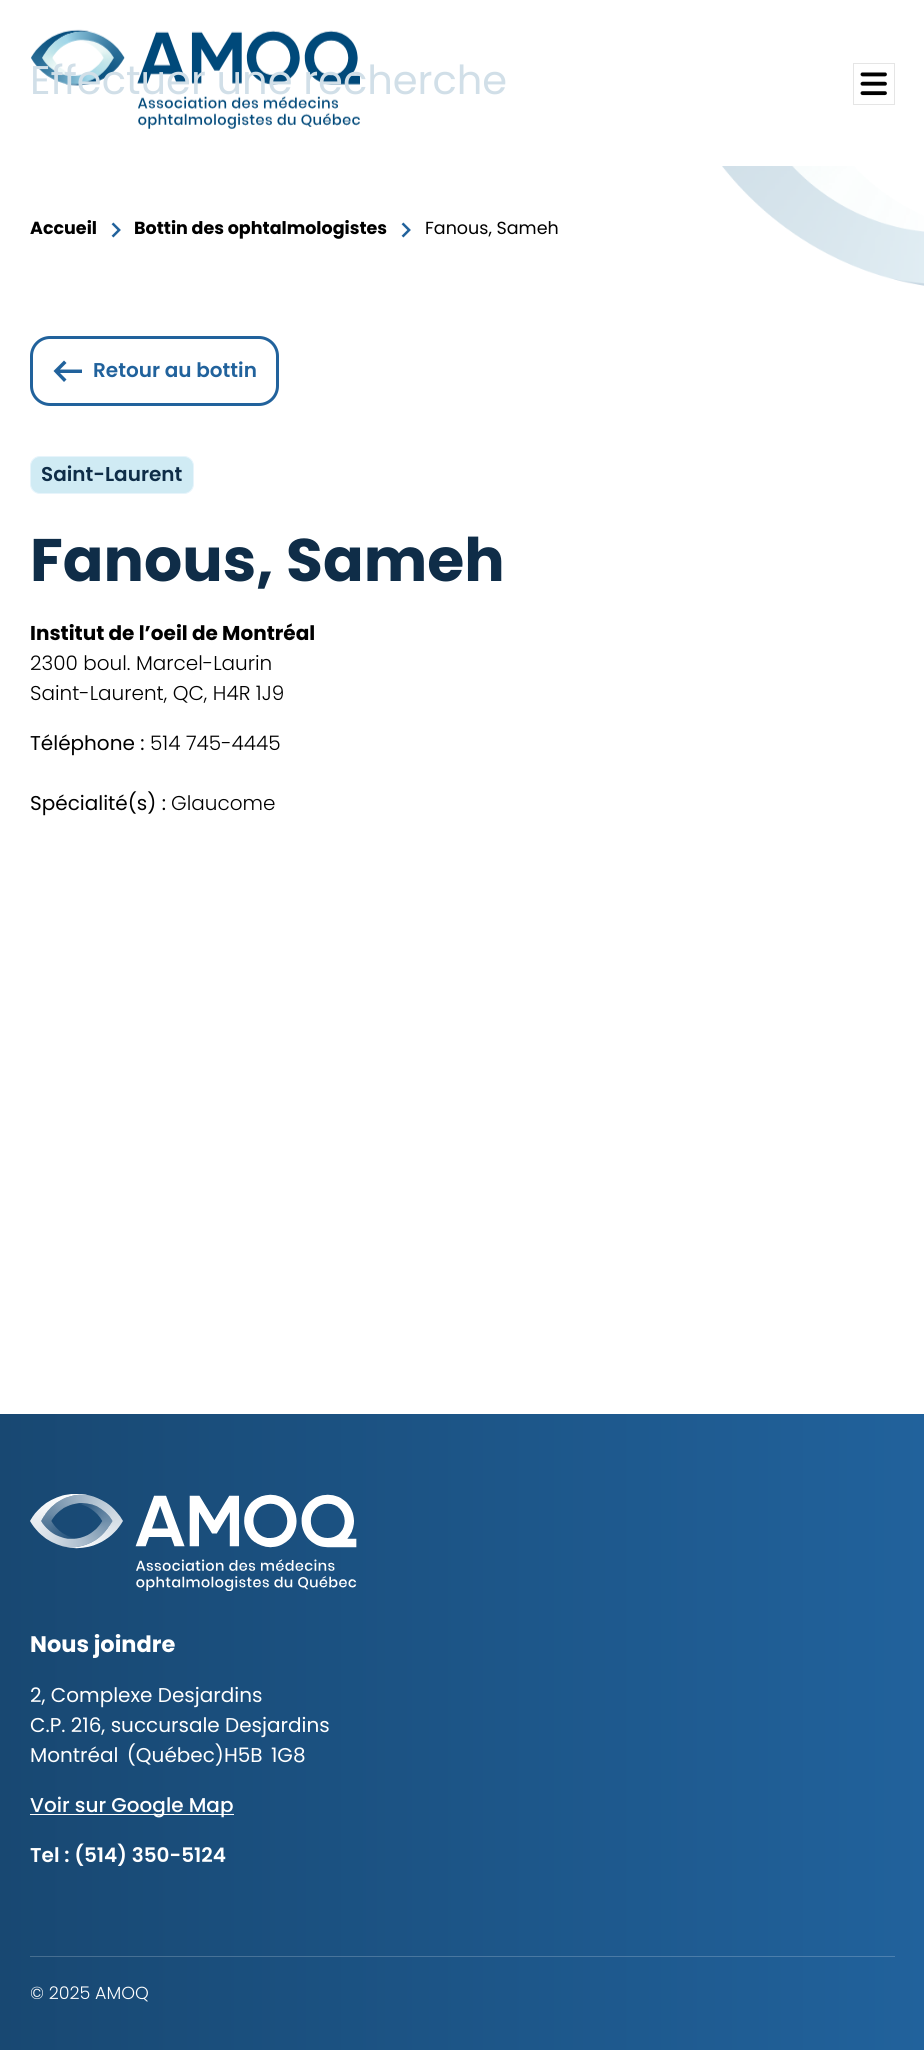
import math
import cairo

surface = cairo.ImageSurface(cairo.Format.RGB24, 924, 2050)
ctx = cairo.Context(surface)
options = cairo.FontOptions()
options.set_hint_metrics(cairo.HintMetrics.OFF)
options.set_hint_style(cairo.HintStyle.NONE)
ctx.set_font_options(options)
ctx.set_miter_limit(4)


def ink(r, g, b):
    ctx.set_source_rgb(r / 255, g / 255, b / 255)


def write(x, y, s, family, size, color, bold=False, italic=False):
    ctx.select_font_face(family, cairo.FontSlant.ITALIC if italic else cairo.FontSlant.NORMAL, cairo.FontWeight.BOLD if bold else cairo.FontWeight.NORMAL)
    ctx.set_font_size(size)
    ink(*color)
    ctx.move_to(x, y)
    ctx.show_text(s)


def write_spaced(x, y, s, letter, word):
    ctx.move_to(x, y)
    for ch in s:
        ctx.show_text(ch)
        ctx.rel_move_to(letter + word * (ch == ' '), 0)


def block(x, y, w, h, *color):
    ink(*color)
    ctx.rectangle(x, y, w, h)
    ctx.fill()


def round_path(x, y, w, h, r):
    ctx.new_sub_path()
    for i, (u, v) in enumerate([(x + w - r, y + h - r), (x + r, y + h - r), (x + r, y + r), (x + w - r, y + r)]):
        ctx.arc(u, v, r, i * math.pi / 2, (i + 1) * math.pi / 2)
    ctx.close_path()


def paste(path, x, y, w, h):
    ctx.save()
    ctx.set_source_surface(cairo.ImageSurface.create_from_png(path), x, y)
    ctx.rectangle(x, y, w, h)
    ctx.fill()
    ctx.restore()


s1 = dict(family="Poppins", size=40, color=(209, 223, 232))
s2 = dict(family="Poppins", size=17.5, color=(0, 0, 0), bold=True)
s3 = dict(family="Poppins", size=17.5, color=(0, 0, 0))
s4 = dict(family="Poppins SemiBold", size=20, color=(33, 98, 156))
s5 = dict(family="Poppins SemiBold", size=20, color=(15, 45, 72))
s6 = dict(family="Poppins", size=60, color=(15, 45, 72), bold=True)
s7 = dict(family="Poppins", size=20, color=(0, 0, 0), bold=True)
s8 = dict(family="Poppins Light", size=20, color=(0, 0, 0))
s9 = dict(family="Poppins", size=20, color=(0, 0, 0))
s10 = dict(family="Poppins", size=22.5, color=(255, 255, 255), bold=True)
s11 = dict(family="Poppins", size=20, color=(255, 255, 255))
s12 = dict(family="Poppins Medium", size=20, color=(255, 255, 255))
s13 = dict(family="Poppins SemiBold", size=20, color=(255, 255, 255))
s14 = dict(family="Poppins Light", size=17.5, color=(255, 255, 255))

ink(255, 255, 255)
ctx.paint()
paste("pic1.png", 31, 29, 329, 100)
ctx.rectangle(853.5, 63.5, 41, 41)
ink(229, 229, 229)
ctx.set_line_width(1)
ctx.stroke()
paste("pic2.png", 860, 72, 27, 24)
write(30, 94, "Effectuer une recherche", **s1)
write(30, 234, "Accueil", **s2)
paste("pic3.png", 111, 222, 10, 16)
write(134, 234, "Bottin des ophtalmologistes", **s2)
paste("pic3.png", 401, 222, 10, 16)
write(425, 234, "Fanous, Sameh", **s3)
round_path(31.5, 337.5, 246, 67, 18.5)
ink(33, 98, 156)
ctx.set_line_width(3)
ctx.stroke()
ctx.new_path()
ctx.move_to(82, 369.5)
ctx.line_to(60, 369.5)
ctx.line_to(66.5, 363)
ctx.line_to(64, 360.5)
ctx.line_to(53.5, 371)
ctx.line_to(64, 382)
ctx.line_to(66.5, 379.5)
ctx.line_to(60, 373)
ctx.line_to(82, 373)
ctx.close_path()
ctx.fill()
write(93, 377, "Retour au bottin", **s4)
ink(208, 235, 244)
round_path(30.5, 456.5, 163, 37, 9.5)
ctx.fill_preserve()
ink(231, 244, 251)
ctx.set_line_width(1)
ctx.stroke()
write(41, 481, "Saint-Laurent", **s5)
write(30, 581, "Fanous, Sameh", **s6)
write(30, 640, "Institut de l’oeil de Montréal", **s7)
write(30, 670, "2300 boul. Marcel-Laurin", **s8)
write(30, 700, "Saint-Laurent, QC, H4R 1J9", **s8)
write(30, 750, "Téléphone :", **s9)
write(150, 750, "514 745-4445", **s8)
write(30, 810, "Spécialité(s) :", **s9)
write(171, 810, "Glaucome", **s8)
gradient = cairo.LinearGradient(0, 1843, 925, 1843)
gradient.add_color_stop_rgba(0, 0.094, 0.282, 0.447, 1)
gradient.add_color_stop_rgba(1, 0.129, 0.384, 0.612, 1)
ctx.set_source(gradient)
ctx.rectangle(0, 1414, 924, 636)
ctx.fill()
gradient = cairo.LinearGradient(0, 1843, 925, 1843)
gradient.add_color_stop_rgba(0, 0.275, 0.427, 0.557, 1)
gradient.add_color_stop_rgba(1, 0.302, 0.506, 0.69, 1)
ctx.set_source(gradient)
ctx.rectangle(30, 1956, 865, 1)
ctx.fill()
paste("pic4.png", 30, 1494, 327, 97)
write(30, 1652, "Nous joindre", **s10)
write(30, 1702, "2, Complexe Desjardins", **s11)
write(30, 1732, "C.P. 216, succursale Desjardins", **s11)
write_spaced(30, 1762, "Montréal (Québec)H5B 1G8", 0, 3)
block(30, 1814, 204, 1, 255, 255, 255)
write(30, 1812, "Voir sur Google Map", **s12)
write(30, 1862, "Tel : (514) 350-5124", **s13)
write(30, 1999, "© 2025 AMOQ", **s14)
paste("pic5.png", 722, 166, 202, 120)
surface.write_to_png("screenshot.png")
